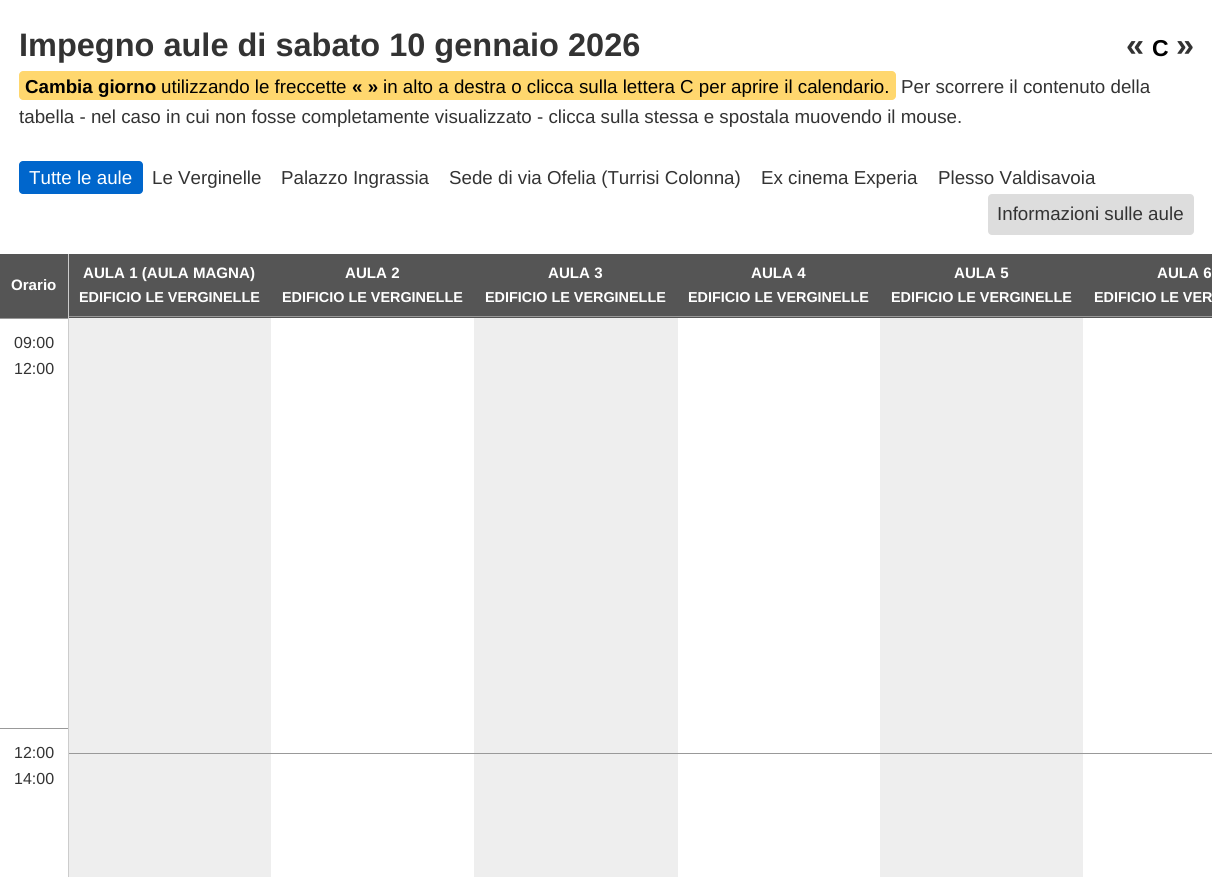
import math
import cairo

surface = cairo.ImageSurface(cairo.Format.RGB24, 1212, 877)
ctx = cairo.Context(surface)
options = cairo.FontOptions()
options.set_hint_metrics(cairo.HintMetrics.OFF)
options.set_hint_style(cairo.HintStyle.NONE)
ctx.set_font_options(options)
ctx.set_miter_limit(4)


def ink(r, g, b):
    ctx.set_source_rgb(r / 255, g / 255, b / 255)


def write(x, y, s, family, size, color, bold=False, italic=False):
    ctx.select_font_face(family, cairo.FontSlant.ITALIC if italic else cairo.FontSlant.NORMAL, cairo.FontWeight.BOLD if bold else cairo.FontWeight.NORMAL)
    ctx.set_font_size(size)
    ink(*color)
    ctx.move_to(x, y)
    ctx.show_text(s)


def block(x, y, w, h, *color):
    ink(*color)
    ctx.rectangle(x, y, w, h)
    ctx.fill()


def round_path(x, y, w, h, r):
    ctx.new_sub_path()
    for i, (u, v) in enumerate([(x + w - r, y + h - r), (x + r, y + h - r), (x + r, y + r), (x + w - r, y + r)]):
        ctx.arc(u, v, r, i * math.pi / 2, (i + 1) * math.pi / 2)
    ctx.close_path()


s1 = dict(family="Liberation Sans", size=32.5, color=(51, 51, 51), bold=True)
s2 = dict(family="Liberation Sans", size=23, color=(0, 0, 0), bold=True)
s3 = dict(family="Liberation Sans", size=18.75, color=(0, 0, 0), bold=True)
s4 = dict(family="Liberation Sans", size=18.75, color=(0, 0, 0))
s5 = dict(family="Liberation Sans", size=18.75, color=(51, 51, 51))
s6 = dict(family="Liberation Sans", size=18.75, color=(255, 255, 255))
s7 = dict(family="Liberation Sans", size=15.1, color=(255, 255, 255), bold=True)
s8 = dict(family="Liberation Sans", size=16, color=(51, 51, 51))
s9 = dict(family="Liberation Sans", size=14.4, color=(255, 255, 255), bold=True)

ink(255, 255, 255)
ctx.paint()
write(19, 56, "Impegno aule di sabato 10 gennaio 2026", **s1)
write(1126, 56, "«", **s1)
write(1152, 56, "C", **s2)
write(1176, 56, "»", **s1)
ink(255, 215, 110)
ctx.new_path()
ctx.move_to(23, 71)
ctx.line_to(156, 71)
ctx.line_to(156, 100)
ctx.line_to(23, 100)
ctx.curve_to(21, 100, 19, 98, 19, 96)
ctx.line_to(19, 75)
ctx.curve_to(19, 73, 21, 71, 23, 71)
ctx.close_path()
ctx.fill()
write(25, 93, "Cambia giorno", **s3)
block(156, 71, 223, 29, 255, 215, 110)
write(161, 93, "utilizzando le freccette", **s4)
write(352, 93, "« »", **s3)
ink(255, 215, 110)
ctx.new_path()
ctx.move_to(379, 71)
ctx.line_to(892, 71)
ctx.curve_to(894, 71, 896, 73, 896, 75)
ctx.line_to(896, 96)
ctx.curve_to(896, 98, 894, 100, 892, 100)
ctx.line_to(379, 100)
ctx.close_path()
ctx.fill()
write(383, 93, "in alto a destra o clicca sulla lettera C per aprire il calendario.", **s4)
write(901, 93, "Per scorrere il contenuto della", **s5)
write(19, 123, "tabella - nel caso in cui non fosse completamente visualizzato - clicca sulla stessa e spostala muovendo il mouse.", **s5)
ink(0, 102, 204)
round_path(19, 161, 124, 33, 4)
ctx.fill()
write(29, 184, "Tutte le aule", **s6)
write(152, 184, "Le Verginelle", **s5)
write(281, 184, "Palazzo Ingrassia", **s5)
write(449, 184, "Sede di via Ofelia (Turrisi Colonna)", **s5)
write(761, 184, "Ex cinema Experia", **s5)
write(938, 184, "Plesso Valdisavoia", **s5)
ink(221, 221, 221)
round_path(988, 194, 206, 41, 4)
ctx.fill()
write(997, 220, "Informazioni sulle aule", **s5)
block(0, 254, 68, 64, 85, 85, 85)
write(11, 290, "Orario", **s7)
block(0, 318, 69, 1, 153, 153, 153)
block(0, 728, 69, 1, 153, 153, 153)
block(68, 753, 1144, 1, 153, 153, 153)
block(68, 728, 1, 149, 204, 204, 204)
block(69, 254, 1143, 64, 85, 85, 85)
block(68, 316, 1144, 1, 153, 153, 153)
block(68, 254, 1, 475, 204, 204, 204)
write(14, 348, "09:00", **s8)
write(14, 374, "12:00", **s8)
write(14, 758, "12:00", **s8)
write(14, 784, "14:00", **s8)
write(83, 278, "AULA 1 (AULA MAGNA)", **s7)
write(79, 302, "EDIFICIO LE VERGINELLE", **s9)
write(345, 278, "AULA 2", **s7)
write(282, 302, "EDIFICIO LE VERGINELLE", **s9)
write(548, 278, "AULA 3", **s7)
write(485, 302, "EDIFICIO LE VERGINELLE", **s9)
write(751, 278, "AULA 4", **s7)
write(688, 302, "EDIFICIO LE VERGINELLE", **s9)
write(954, 278, "AULA 5", **s7)
write(891, 302, "EDIFICIO LE VERGINELLE", **s9)
write(1157, 278, "AULA 6", **s7)
write(1094, 302, "EDIFICIO LE VER", **s9)
block(69, 318, 202, 435, 238, 238, 238)
block(474, 318, 204, 435, 238, 238, 238)
block(880, 318, 203, 435, 238, 238, 238)
block(69, 754, 202, 123, 238, 238, 238)
block(474, 754, 204, 123, 238, 238, 238)
block(880, 754, 203, 123, 238, 238, 238)
surface.write_to_png("screenshot.png")
